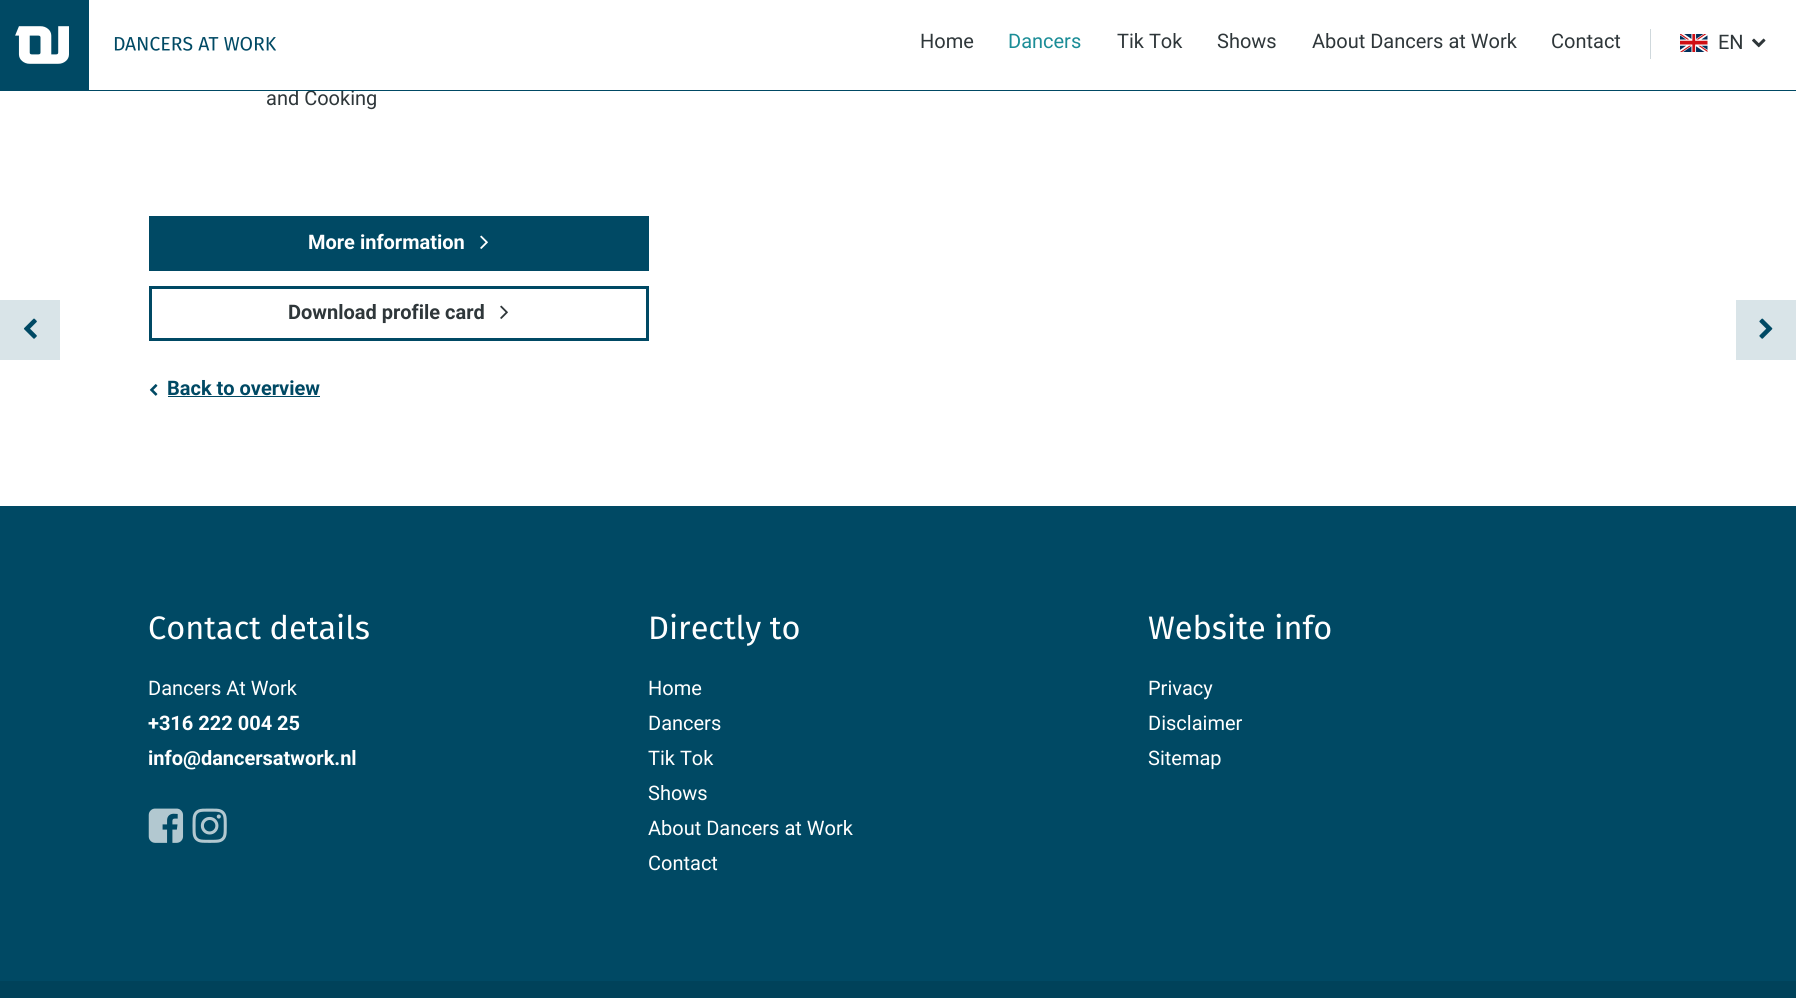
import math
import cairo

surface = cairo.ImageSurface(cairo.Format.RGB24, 1796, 998)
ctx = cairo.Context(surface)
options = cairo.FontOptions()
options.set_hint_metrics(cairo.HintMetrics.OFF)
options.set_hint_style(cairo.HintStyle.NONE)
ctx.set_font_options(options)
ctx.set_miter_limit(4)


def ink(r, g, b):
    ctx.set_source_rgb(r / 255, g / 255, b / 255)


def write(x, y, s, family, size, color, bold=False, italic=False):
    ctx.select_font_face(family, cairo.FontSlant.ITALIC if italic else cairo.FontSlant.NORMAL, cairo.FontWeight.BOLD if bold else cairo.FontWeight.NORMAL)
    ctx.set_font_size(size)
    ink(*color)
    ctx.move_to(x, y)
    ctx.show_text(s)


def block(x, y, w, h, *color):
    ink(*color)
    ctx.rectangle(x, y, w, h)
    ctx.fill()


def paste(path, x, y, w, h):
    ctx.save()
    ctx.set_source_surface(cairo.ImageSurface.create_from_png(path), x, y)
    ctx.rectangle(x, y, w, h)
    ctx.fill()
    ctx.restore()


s1 = dict(family="Roboto", size=20, color=(47, 55, 58))
s2 = dict(family="Roboto", size=20, color=(27, 141, 151))
s3 = dict(family="Roboto", size=20, color=(255, 255, 255), bold=True)
s4 = dict(family="Roboto", size=20, color=(47, 55, 58), bold=True)
s5 = dict(family="Roboto", size=20, color=(0, 73, 100), bold=True)
s6 = dict(family="Fira Sans", size=32.5, color=(255, 255, 255))
s7 = dict(family="Roboto", size=20, color=(255, 255, 255))

ink(255, 255, 255)
ctx.paint()
write(266, 105, "and Cooking", **s1)
block(0, 90, 1796, 1, 0, 73, 100)
paste("pic1.png", 0, 0, 276, 90)
write(920, 48, "Home", **s1)
write(1008, 48, "Dancers", **s2)
write(1117, 48, "Tik Tok", **s1)
write(1217, 48, "Shows", **s1)
write(1312, 48, "About Dancers at Work", **s1)
write(1551, 48, "Contact", **s1)
block(1650, 29, 1, 30, 207, 216, 220)
paste("pic2.png", 1680, 34, 28, 18)
write(1718, 49, "EN", **s1)
paste("pic3.png", 1752, 38, 14, 10)
block(0, 300, 60, 60, 217, 228, 232)
paste("pic4.png", 23, 318, 14, 21)
block(149, 216, 500, 55, 0, 73, 100)
write(308, 249, "More information", **s3)
paste("pic5.png", 480, 235, 8, 14)
ctx.rectangle(150.5, 287.5, 497, 52)
ink(0, 73, 100)
ctx.set_line_width(3)
ctx.stroke()
write(288, 319, "Download profile card", **s4)
paste("pic6.png", 500, 305, 8, 14)
paste("pic7.png", 149, 384, 9, 12)
write(167, 395, "Back to overview", **s5)
block(168, 396, 152, 1, 0, 73, 100)
block(1736, 300, 60, 60, 217, 228, 232)
paste("pic8.png", 1759, 318, 14, 21)
block(0, 506, 1796, 475, 0, 73, 100)
write(148, 639, "Contact details", **s6)
write(148, 695, "Dancers At Work", **s7)
write(148, 730, "+316 222 004 25", **s3)
write(148, 765, "info@dancersatwork.nl", **s3)
paste("pic9.png", 148, 808, 36, 35)
paste("pic10.png", 192, 808, 35, 35)
write(648, 639, "Directly to", **s6)
write(648, 695, "Home", **s7)
write(648, 730, "Dancers", **s7)
write(648, 765, "Tik Tok", **s7)
write(648, 800, "Shows", **s7)
write(648, 835, "About Dancers at Work", **s7)
write(648, 870, "Contact", **s7)
write(1148, 639, "Website info", **s6)
write(1148, 695, "Privacy", **s7)
write(1148, 730, "Disclaimer", **s7)
write(1148, 765, "Sitemap", **s7)
block(0, 981, 1796, 17, 0, 66, 90)
surface.write_to_png("screenshot.png")
